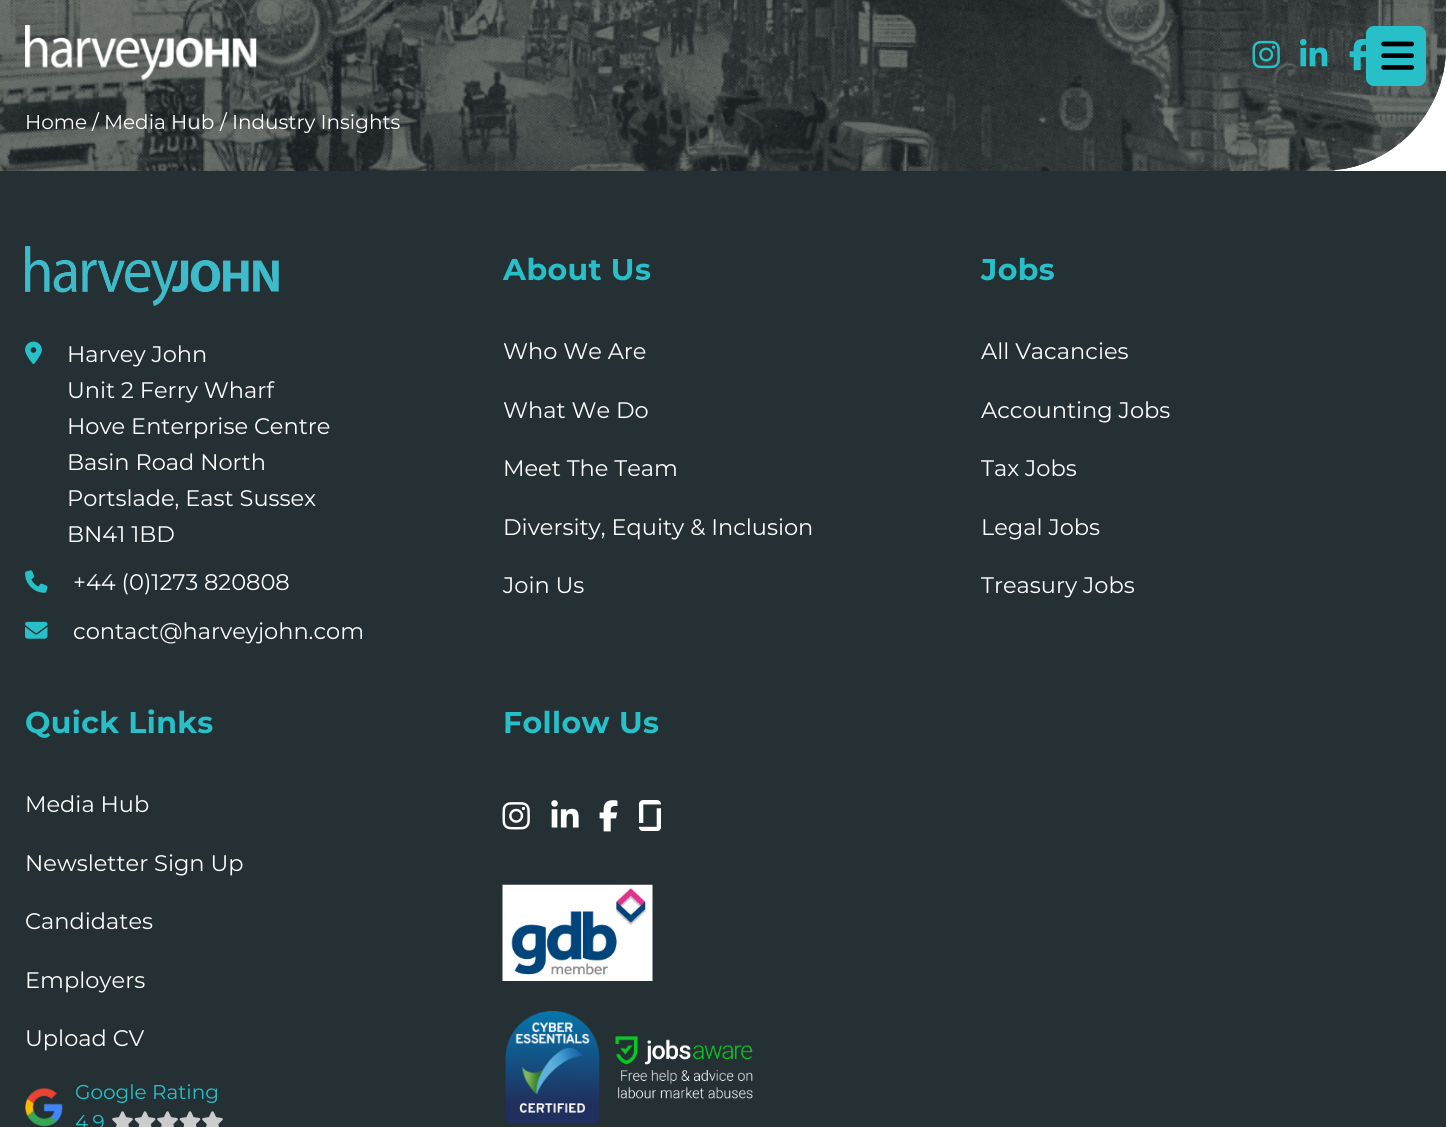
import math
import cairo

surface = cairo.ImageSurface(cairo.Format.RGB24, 1446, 1127)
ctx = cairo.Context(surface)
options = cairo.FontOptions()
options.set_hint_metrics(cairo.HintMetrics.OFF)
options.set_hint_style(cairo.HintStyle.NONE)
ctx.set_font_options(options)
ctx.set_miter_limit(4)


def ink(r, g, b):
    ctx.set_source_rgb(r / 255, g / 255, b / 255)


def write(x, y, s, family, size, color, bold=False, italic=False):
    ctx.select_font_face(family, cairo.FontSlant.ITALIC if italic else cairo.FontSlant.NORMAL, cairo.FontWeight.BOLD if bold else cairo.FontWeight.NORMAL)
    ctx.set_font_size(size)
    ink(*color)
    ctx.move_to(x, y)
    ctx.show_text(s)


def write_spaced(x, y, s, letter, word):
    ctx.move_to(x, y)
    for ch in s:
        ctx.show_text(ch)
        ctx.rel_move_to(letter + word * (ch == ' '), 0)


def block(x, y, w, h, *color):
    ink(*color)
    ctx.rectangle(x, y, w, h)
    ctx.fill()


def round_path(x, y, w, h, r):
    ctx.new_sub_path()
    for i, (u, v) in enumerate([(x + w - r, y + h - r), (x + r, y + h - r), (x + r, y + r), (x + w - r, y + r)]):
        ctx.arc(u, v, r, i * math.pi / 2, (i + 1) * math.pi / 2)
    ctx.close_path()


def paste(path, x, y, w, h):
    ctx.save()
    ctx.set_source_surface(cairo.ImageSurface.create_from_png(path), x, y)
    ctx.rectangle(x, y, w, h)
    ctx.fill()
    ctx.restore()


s1 = dict(family="Montserrat", size=20, color=(255, 255, 255))
s2 = dict(family="Montserrat", size=22.5, color=(255, 255, 255))
s3 = dict(family="Montserrat", size=20, color=(39, 192, 200))

ink(255, 255, 255)
ctx.paint()
ink(37, 48, 52)
ctx.new_path()
ctx.move_to(0, -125)
ctx.line_to(1446, -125)
ctx.line_to(1446, 46)
ctx.curve_to(1446, 115, 1390, 171, 1321, 171)
ctx.line_to(0, 171)
ctx.close_path()
ctx.fill()
block(1335, 169, 8, 1, 255, 255, 255)
paste("pic6.png", 0, 0, 1446, 171)
ctx.set_source_rgba(0.145, 0.188, 0.204, 0.6)
ctx.new_path()
ctx.move_to(0, -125)
ctx.line_to(1446, -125)
ctx.line_to(1446, 46)
ctx.curve_to(1446, 115, 1390, 171, 1321, 171)
ctx.line_to(0, 171)
ctx.close_path()
ctx.fill()
paste("pic1.png", 25, 25, 232, 56)
paste("pic2.png", 1252, 40, 28, 29)
paste("pic3.png", 1300, 38, 28, 29)
paste("pic4.png", 1349, 38, 17, 33)
ink(39, 192, 200)
round_path(1366, 26, 60, 60, 8)
ctx.fill()
paste("pic5.png", 1381, 41, 34, 29)
write(25, 129, "Home", **s1)
write(92, 129, "/ Media Hub", **s1)
write(220, 129, "/ Industry Insights", **s1)
block(0, 171, 1446, 956, 37, 48, 52)
paste("pic7.png", 25, 246, 254, 60)
paste("pic8.png", 25, 341, 17, 23)
write(67, 362, "Harvey John", **s2)
write(67, 398, "Unit 2 Ferry Wharf", **s2)
write(67, 434, "Hove Enterprise Centre", **s2)
write(67, 470, "Basin Road North", **s2)
write(67, 506, "Portslade, East Sussex", **s2)
write(67, 542, "BN41 1BD", **s2)
paste("pic9.png", 25, 570, 23, 23)
write(73, 590, "+44 (0)1273 820808", **s2)
paste("pic10.png", 25, 621, 23, 18)
write(73, 639, "contact@harveyjohn.com", **s2)
ctx.select_font_face("Montserrat", cairo.FontSlant.NORMAL, cairo.FontWeight.BOLD)
ctx.set_font_size(30)
ink(39, 192, 200)
write_spaced(503, 280, "About Us", 0.4, 0)
write(503, 359, "Who We Are", **s2)
write(503, 418, "What We Do", **s2)
write(503, 476, "Meet The Team", **s2)
write(503, 535, "Diversity, Equity & Inclusion", **s2)
write(503, 593, "Join Us", **s2)
ctx.select_font_face("Montserrat", cairo.FontSlant.NORMAL, cairo.FontWeight.BOLD)
ctx.set_font_size(30)
ink(39, 192, 200)
write_spaced(981, 280, "Jobs", 0.4, 0)
write(981, 359, "All Vacancies", **s2)
write(981, 418, "Accounting Jobs", **s2)
write(981, 476, "Tax Jobs", **s2)
write(981, 535, "Legal Jobs", **s2)
write(981, 593, "Treasury Jobs", **s2)
ctx.select_font_face("Montserrat", cairo.FontSlant.NORMAL, cairo.FontWeight.BOLD)
ctx.set_font_size(30)
ink(39, 192, 200)
write_spaced(25, 733, "Quick Links", 0.4, 0)
write(25, 812, "Media Hub", **s2)
write(25, 871, "Newsletter Sign Up", **s2)
write(25, 929, "Candidates", **s2)
write(25, 988, "Employers", **s2)
write(25, 1046, "Upload CV", **s2)
paste("pic11.png", 25, 1088, 38, 38)
write(75, 1099, "Google Rating", **s3)
write(75, 1129, "4.9", **s3)
paste("pic12.png", 112, 1111, 111, 16)
ctx.select_font_face("Montserrat", cairo.FontSlant.NORMAL, cairo.FontWeight.BOLD)
ctx.set_font_size(30)
write_spaced(503, 733, "Follow Us", 0.4, 0)
paste("pic13.png", 502, 802, 28, 28)
paste("pic14.png", 551, 800, 28, 28)
paste("pic15.png", 599, 800, 19, 32)
paste("pic16.png", 639, 800, 22, 31)
paste("pic17.png", 502, 884, 151, 97)
paste("pic18.png", 505, 1011, 95, 113)
paste("pic19.png", 615, 1036, 138, 63)
surface.write_to_png("screenshot.png")
